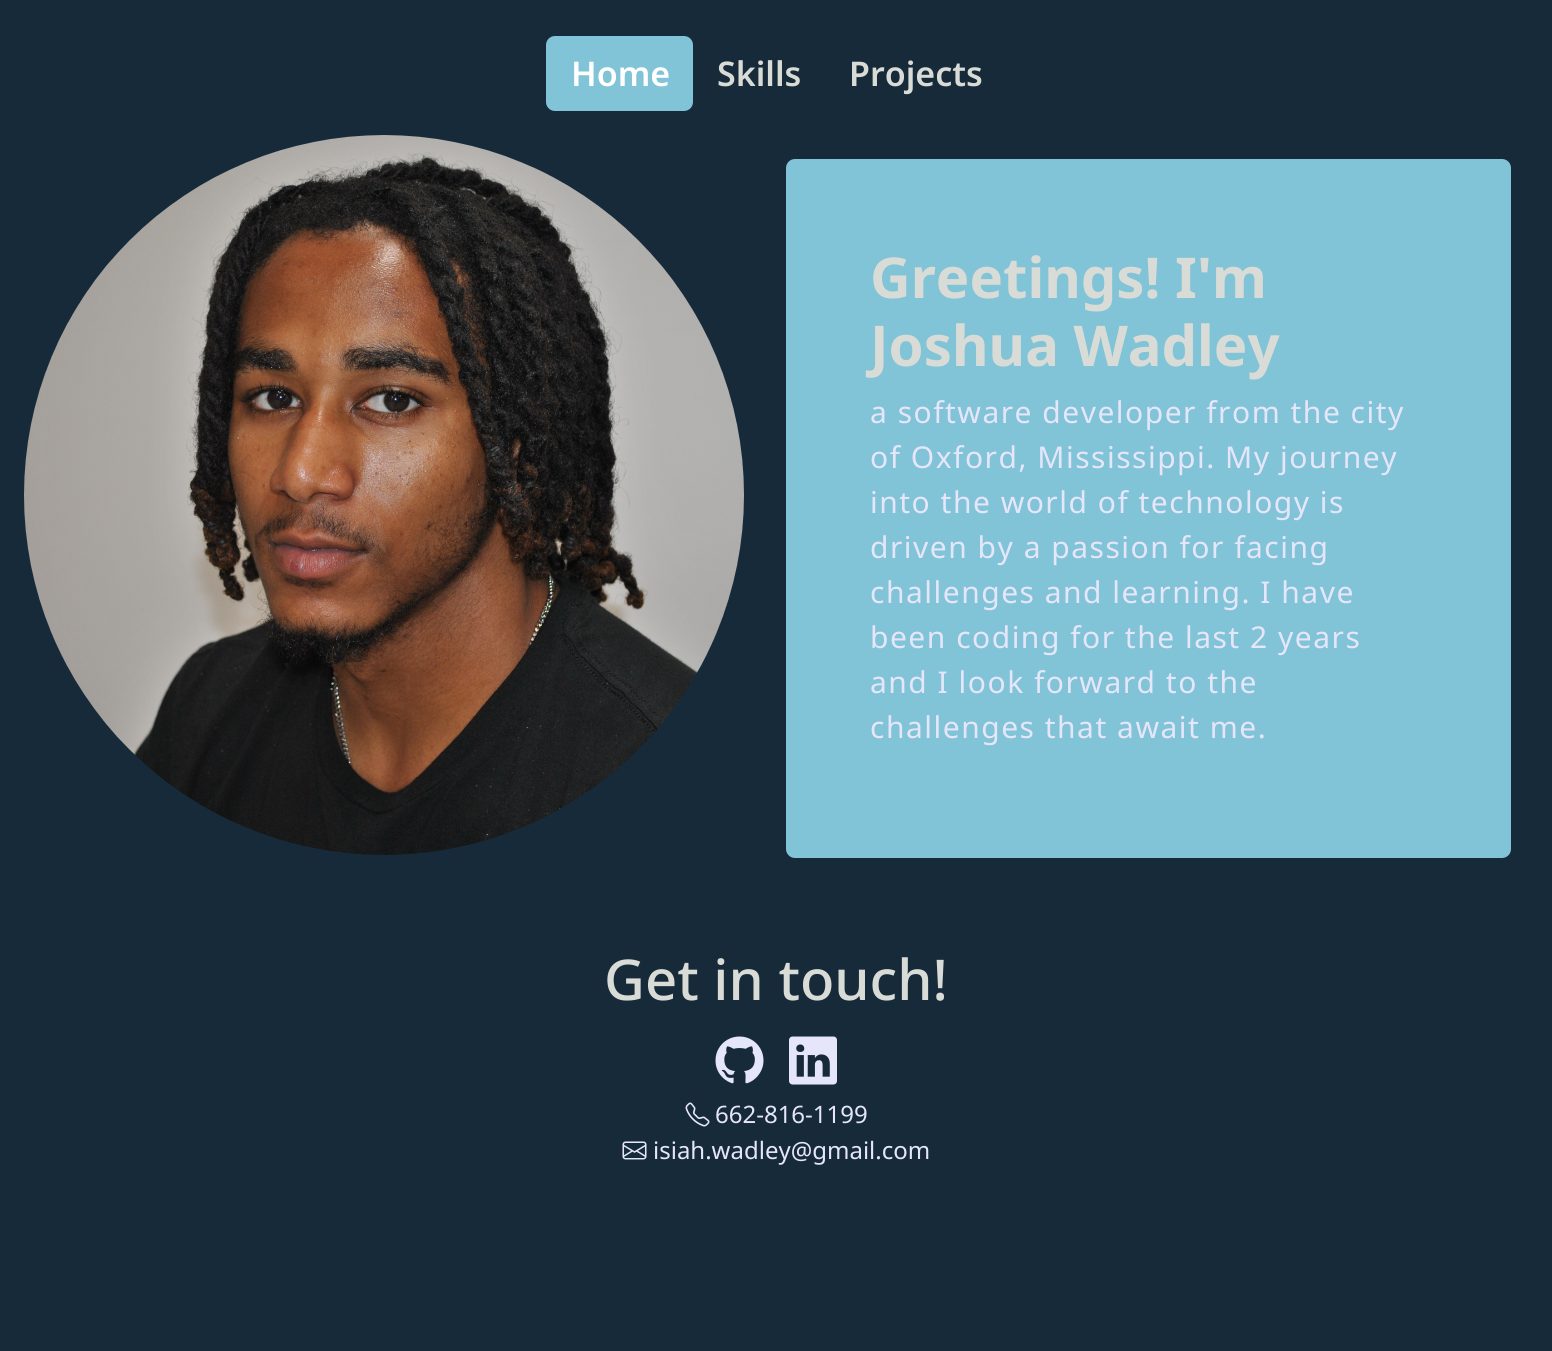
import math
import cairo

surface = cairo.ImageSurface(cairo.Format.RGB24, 1552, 1351)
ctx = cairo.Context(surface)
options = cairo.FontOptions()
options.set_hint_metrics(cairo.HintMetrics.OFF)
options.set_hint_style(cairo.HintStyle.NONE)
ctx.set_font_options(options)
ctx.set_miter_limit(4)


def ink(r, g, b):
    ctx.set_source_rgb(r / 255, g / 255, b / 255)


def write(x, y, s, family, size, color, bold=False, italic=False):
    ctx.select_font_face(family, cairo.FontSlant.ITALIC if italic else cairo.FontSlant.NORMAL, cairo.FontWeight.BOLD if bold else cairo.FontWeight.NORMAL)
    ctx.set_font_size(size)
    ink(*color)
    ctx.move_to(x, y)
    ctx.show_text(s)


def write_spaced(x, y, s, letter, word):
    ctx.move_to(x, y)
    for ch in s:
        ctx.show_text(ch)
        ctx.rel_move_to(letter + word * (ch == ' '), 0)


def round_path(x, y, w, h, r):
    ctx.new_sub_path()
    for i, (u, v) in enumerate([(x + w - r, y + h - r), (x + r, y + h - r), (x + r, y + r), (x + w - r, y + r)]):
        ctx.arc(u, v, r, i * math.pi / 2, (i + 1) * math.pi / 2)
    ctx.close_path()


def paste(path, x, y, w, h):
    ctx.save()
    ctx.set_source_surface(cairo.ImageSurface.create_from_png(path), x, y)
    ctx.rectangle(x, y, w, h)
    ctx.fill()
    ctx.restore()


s1 = dict(family="Noto Sans SemiBold", size=34, color=(255, 255, 255))
s2 = dict(family="Noto Sans SemiBold", size=34, color=(217, 220, 214))
s3 = dict(family="Noto Sans", size=56.25, color=(217, 220, 214), bold=True)
s4 = dict(family="Noto Sans Medium", size=56.25, color=(217, 220, 214))
s5 = dict(family="Noto Sans", size=24, color=(230, 230, 250))

ink(23, 42, 58)
ctx.paint()
ink(129, 195, 215)
round_path(546, 36, 147, 75, 9)
ctx.fill()
write(571, 86, "Home", **s1)
write(717, 86, "Skills", **s2)
write(849, 86, "Projects", **s2)
paste("pic1.png", 24, 135, 720, 720)
ink(129, 195, 215)
round_path(786, 159, 725, 699, 9)
ctx.fill()
write(870, 298, "Greetings! I'm", **s3)
write(870, 366, "Joshua Wadley", **s3)
ctx.select_font_face("Noto Sans")
ctx.set_font_size(30)
ink(230, 230, 250)
write_spaced(870, 423, "a software developer from the city", 1.5, 0)
write_spaced(870, 468, "of Oxford, Mississippi. My journey", 1.5, 0)
write_spaced(870, 513, "into the world of technology is", 1.5, 0)
write_spaced(870, 558, "driven by a passion for facing", 1.5, 0)
write_spaced(870, 603, "challenges and learning. I have", 1.5, 0)
write_spaced(870, 648, "been coding for the last 2 years", 1.5, 0)
write_spaced(870, 693, "and I look forward to the", 1.5, 0)
write_spaced(870, 738, "challenges that await me.", 1.5, 0)
write(604, 1000, "Get in touch!", **s4)
paste("pic2.png", 715, 1036, 49, 48)
paste("pic3.png", 789, 1036, 48, 49)
paste("pic4.png", 685, 1102, 25, 25)
write(715, 1123, "662-816-1199", **s5)
paste("pic5.png", 622, 1141, 25, 19)
write(653, 1159, "isiah.wadley@gmail.com", **s5)
surface.write_to_png("screenshot.png")
